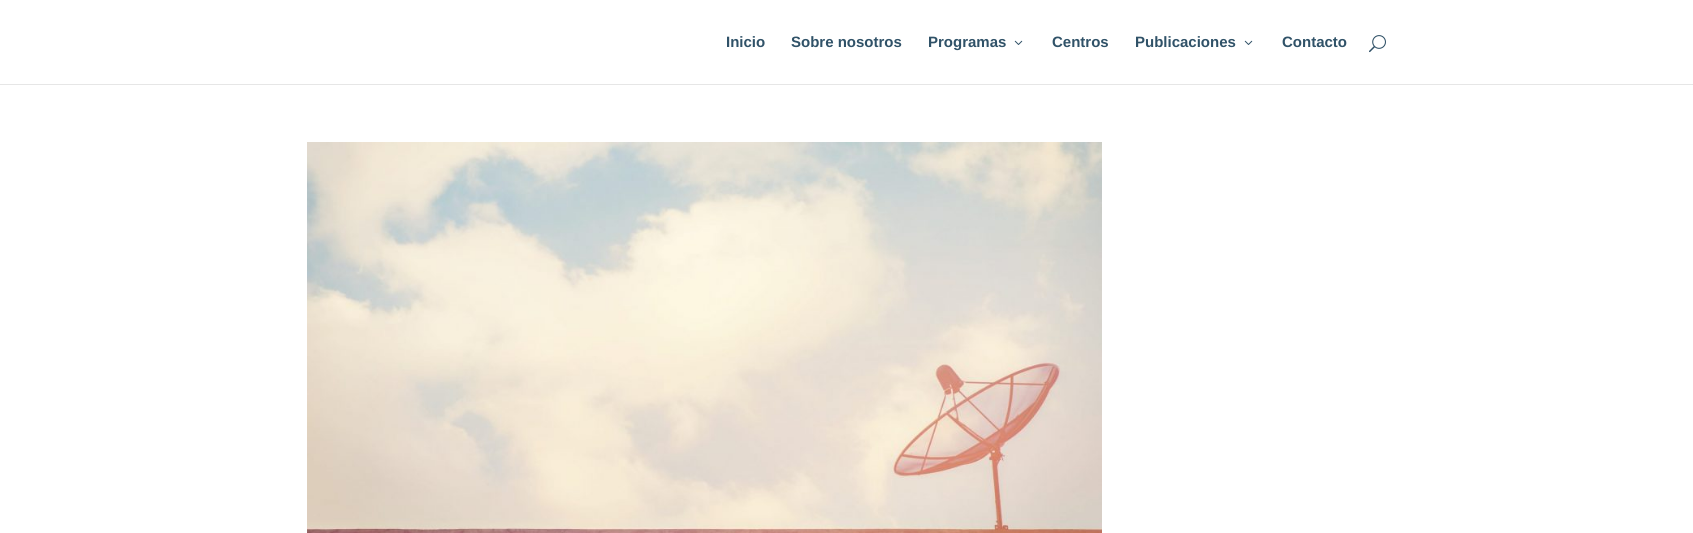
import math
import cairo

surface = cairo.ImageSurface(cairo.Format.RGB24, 1693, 533)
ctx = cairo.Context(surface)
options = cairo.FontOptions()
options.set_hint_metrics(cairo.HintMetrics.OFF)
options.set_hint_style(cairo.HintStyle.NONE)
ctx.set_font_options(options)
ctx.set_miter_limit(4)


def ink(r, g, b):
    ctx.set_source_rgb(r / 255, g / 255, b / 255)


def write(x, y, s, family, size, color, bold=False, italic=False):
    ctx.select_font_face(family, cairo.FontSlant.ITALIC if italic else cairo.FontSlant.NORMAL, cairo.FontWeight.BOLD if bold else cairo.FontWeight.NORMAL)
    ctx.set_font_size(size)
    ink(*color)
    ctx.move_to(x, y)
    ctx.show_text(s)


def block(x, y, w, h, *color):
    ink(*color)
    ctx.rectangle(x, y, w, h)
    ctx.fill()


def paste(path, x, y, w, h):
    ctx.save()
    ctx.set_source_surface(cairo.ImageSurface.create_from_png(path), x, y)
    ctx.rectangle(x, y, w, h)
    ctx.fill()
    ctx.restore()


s1 = dict(family="Liberation Sans", size=15, color=(48, 82, 104), bold=True)

ink(255, 255, 255)
ctx.paint()
block(0, 84, 1693, 1, 230, 230, 230)
write(726, 47, "Inicio", **s1)
write(791, 47, "Sobre nosotros", **s1)
write(928, 47, "Programas", **s1)
paste("pic1.png", 1014, 40, 9, 5)
write(1052, 47, "Centros", **s1)
write(1135, 47, "Publicaciones", **s1)
paste("pic1.png", 1244, 40, 9, 5)
write(1282, 47, "Contacto", **s1)
paste("pic2.png", 1369, 35, 17, 18)
paste("pic3.png", 307, 142, 795, 391)
surface.write_to_png("screenshot.png")
